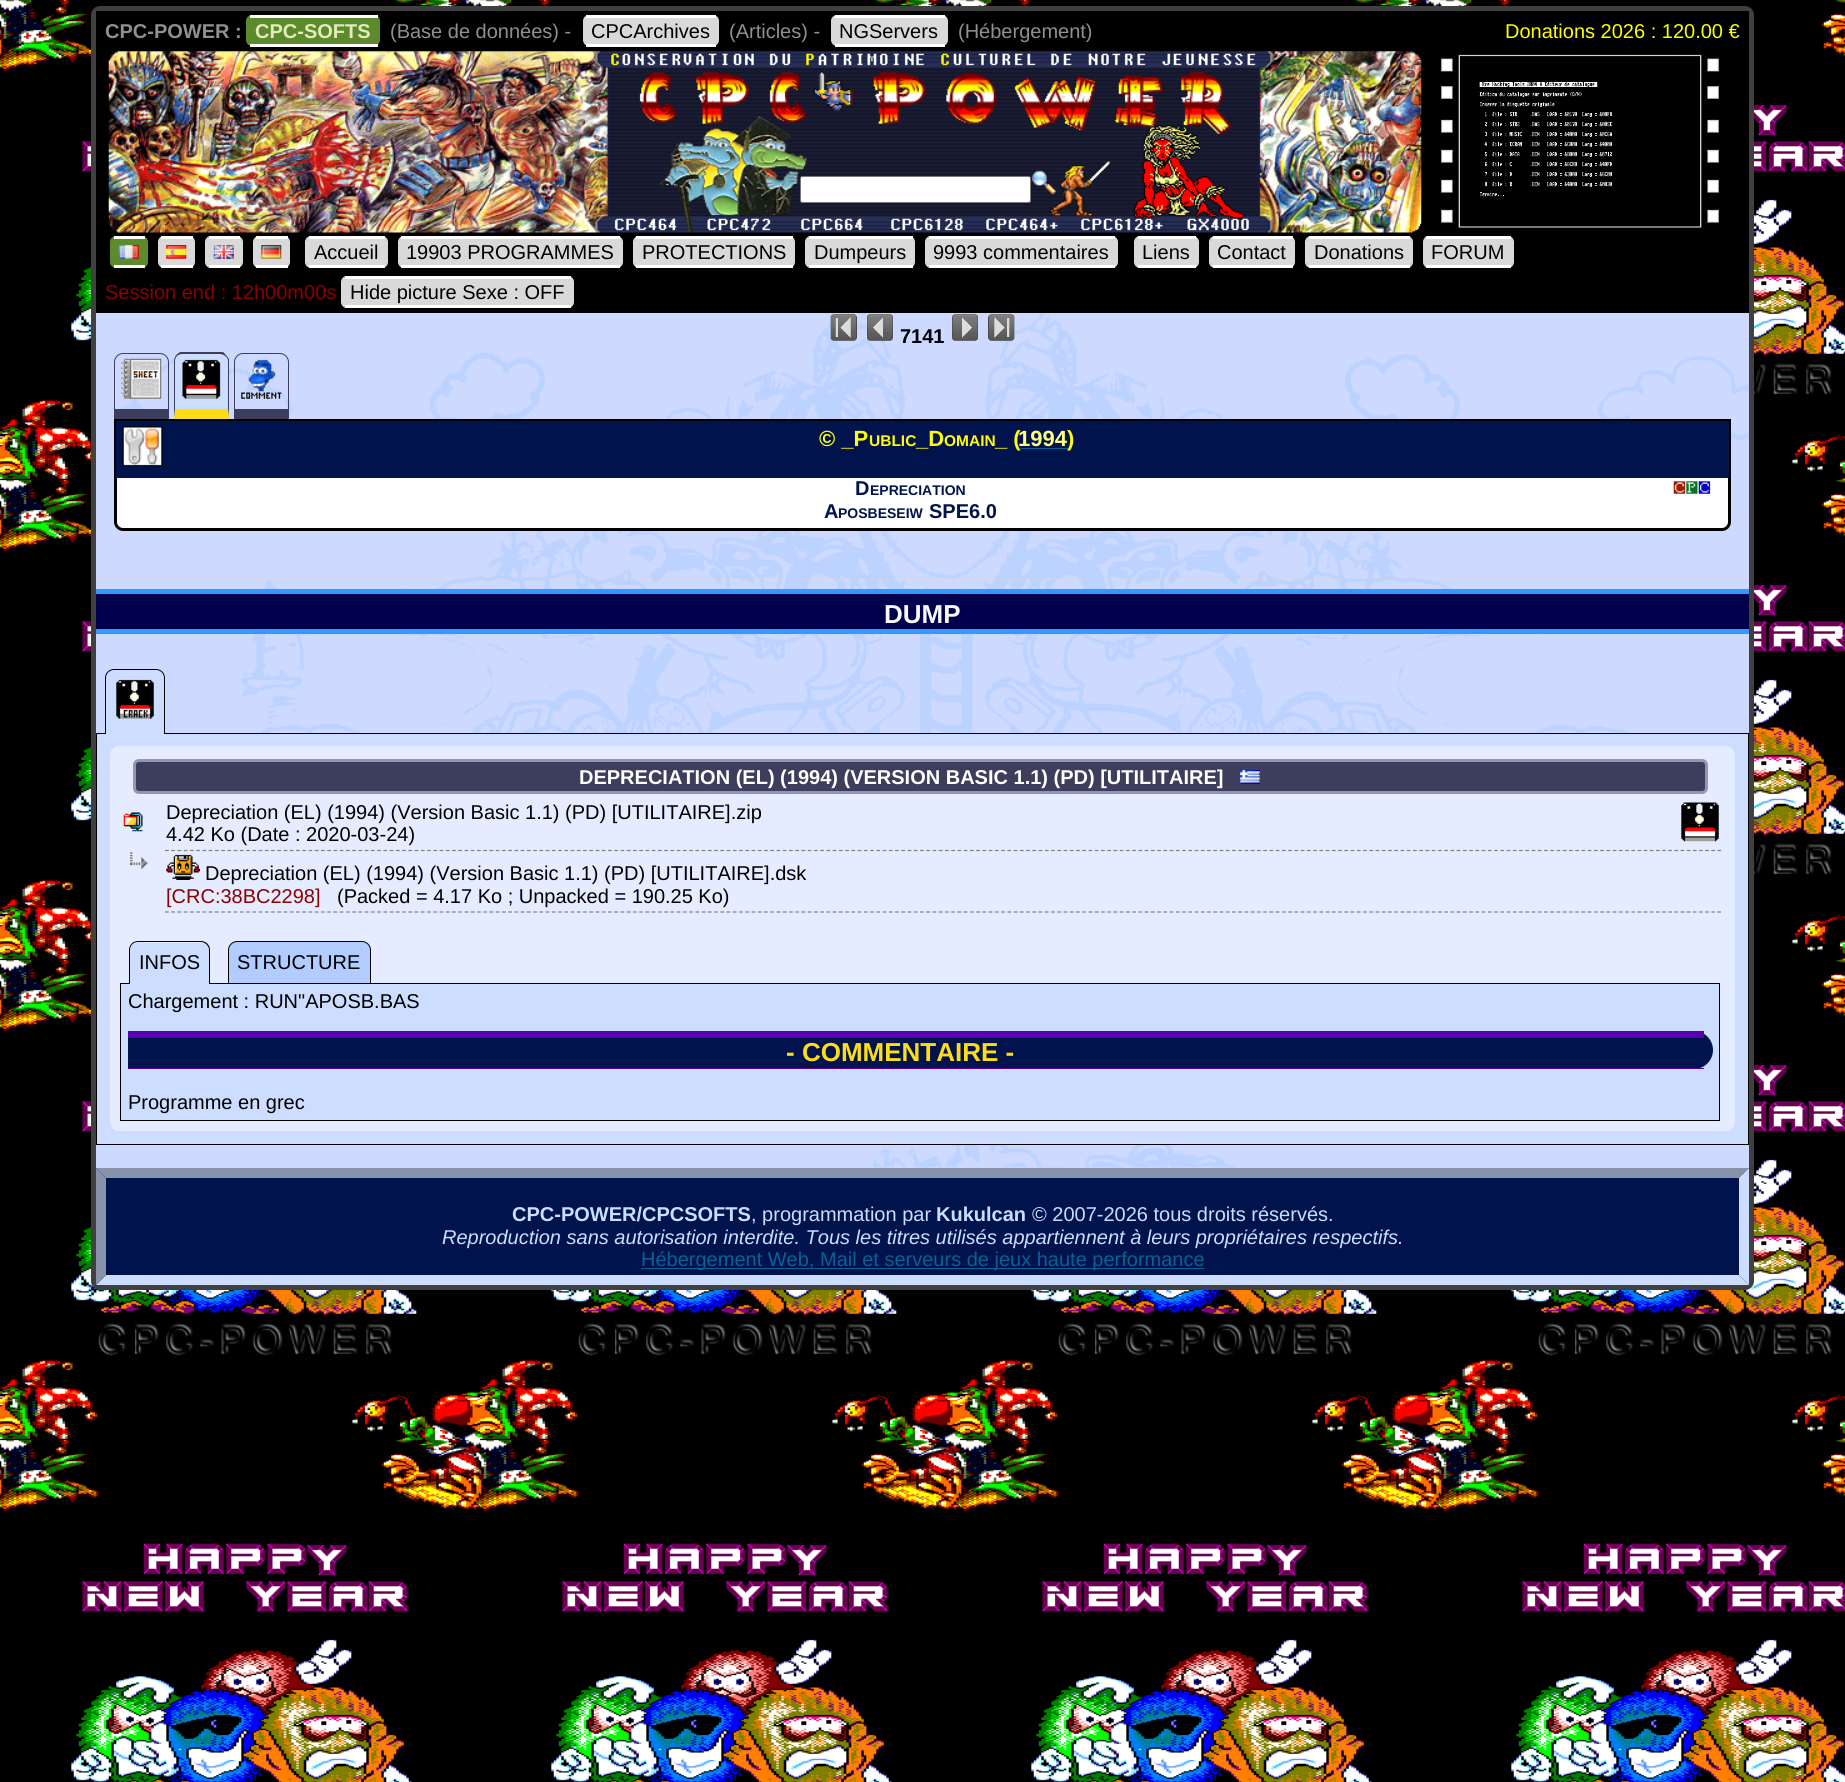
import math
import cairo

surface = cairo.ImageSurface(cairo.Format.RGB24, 1845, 1782)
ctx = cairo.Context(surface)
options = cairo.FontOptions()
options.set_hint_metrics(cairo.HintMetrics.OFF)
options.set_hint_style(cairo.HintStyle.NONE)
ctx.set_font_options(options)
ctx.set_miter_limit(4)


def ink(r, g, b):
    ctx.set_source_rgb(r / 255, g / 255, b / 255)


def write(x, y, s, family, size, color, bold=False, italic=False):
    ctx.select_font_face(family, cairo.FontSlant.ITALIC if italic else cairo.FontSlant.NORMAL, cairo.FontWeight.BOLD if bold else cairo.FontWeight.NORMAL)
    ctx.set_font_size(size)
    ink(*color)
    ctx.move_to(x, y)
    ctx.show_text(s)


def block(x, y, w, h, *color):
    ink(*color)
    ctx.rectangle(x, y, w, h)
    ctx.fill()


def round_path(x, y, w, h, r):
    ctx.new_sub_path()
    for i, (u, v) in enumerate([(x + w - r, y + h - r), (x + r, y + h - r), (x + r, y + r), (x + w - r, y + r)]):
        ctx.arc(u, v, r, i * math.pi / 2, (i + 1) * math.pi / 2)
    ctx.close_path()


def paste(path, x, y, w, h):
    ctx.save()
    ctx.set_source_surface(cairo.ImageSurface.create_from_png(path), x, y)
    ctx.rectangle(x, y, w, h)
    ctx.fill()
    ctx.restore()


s1 = dict(family="Liberation Sans", size=20, color=(144, 144, 144), bold=True)
s2 = dict(family="Liberation Sans", size=20, color=(225, 236, 185), bold=True)
s3 = dict(family="Liberation Sans", size=20, color=(144, 144, 144))
s4 = dict(family="Liberation Sans", size=20, color=(0, 0, 0))
s5 = dict(family="Liberation Sans", size=20, color=(255, 255, 0))
s6 = dict(family="Liberation Sans", size=20, color=(139, 0, 0))
s7 = dict(family="Liberation Sans", size=20, color=(0, 0, 0), bold=True)
s8 = dict(family="Liberation Sans", size=22, color=(255, 255, 0), bold=True)
s9 = dict(family="Liberation Sans", size=15.5, color=(255, 255, 0), bold=True)
s10 = dict(family="Liberation Sans", size=22, color=(255, 255, 128), bold=True)
s11 = dict(family="Liberation Sans", size=20, color=(0, 19, 77), bold=True)
s12 = dict(family="Liberation Sans", size=14, color=(0, 19, 77), bold=True)
s13 = dict(family="Liberation Sans", size=26, color=(248, 248, 248), bold=True)
s14 = dict(family="Liberation Sans", size=20, color=(255, 255, 255), bold=True)
s15 = dict(family="Liberation Sans", size=26, color=(254, 221, 20), bold=True)
s16 = dict(family="Liberation Sans", size=20, color=(204, 221, 255), bold=True)
s17 = dict(family="Liberation Sans", size=20, color=(204, 221, 255))
s18 = dict(family="Liberation Sans", size=20, color=(204, 221, 255), italic=True)
s19 = dict(family="Liberation Sans", size=20, color=(7, 97, 149))

ink(255, 255, 255)
ctx.paint()
paste("pic1.png", 0, 0, 1845, 1782)
ink(0, 0, 0)
round_path(93.5, 8.5, 1658, 1279, 6.5)
ctx.fill_preserve()
ink(64, 64, 64)
ctx.set_line_width(5)
ctx.stroke()
block(96, 11, 1653, 4, 0, 0, 0)
write(105, 38, "CPC-POWER :", **s1)
ink(92, 138, 45)
round_path(246, 15, 134, 31, 6)
ctx.fill()
write(255, 38, "CPC-SOFTS", **s2)
block(250, 15, 128, 3, 255, 255, 255)
block(250, 44, 128, 3, 255, 255, 255)
write(390, 38, "(Base de données) -", **s3)
ink(217, 217, 217)
round_path(583, 15, 136, 31, 6)
ctx.fill()
write(591, 38, "CPCArchives", **s4)
block(586, 15, 130, 3, 255, 255, 255)
block(586, 44, 130, 3, 255, 255, 255)
write(729, 38, "(Articles) -", **s3)
ink(217, 217, 217)
round_path(831, 15, 117, 31, 6)
ctx.fill()
write(839, 38, "NGServers", **s4)
block(835, 15, 110, 3, 255, 255, 255)
block(835, 44, 110, 3, 255, 255, 255)
write(958, 38, "(Hébergement)", **s3)
write(1505, 38, "Donations 2026 : 120.00 €", **s5)
paste("pic2.png", 108, 51, 1314, 182)
ink(255, 255, 255)
round_path(800.5, 176.5, 230, 26, 2)
ctx.fill_preserve()
ink(118, 118, 118)
ctx.set_line_width(1)
ctx.stroke()
paste("pic3.png", 1032, 170, 24, 25)
paste("pic4.png", 1441, 54, 278, 174)
paste("pic5.png", 1460, 56, 240, 171)
ink(92, 138, 45)
round_path(110, 236, 38, 32, 6)
ctx.fill()
block(114, 236, 31, 3, 255, 255, 255)
ink(217, 217, 217)
round_path(158, 236, 37, 32, 6)
ctx.fill()
block(161, 236, 32, 3, 255, 255, 255)
ink(217, 217, 217)
round_path(205, 236, 38, 32, 6)
ctx.fill()
block(209, 236, 31, 3, 255, 255, 255)
ink(217, 217, 217)
round_path(253, 236, 37, 32, 6)
ctx.fill()
block(256, 236, 32, 3, 255, 255, 255)
paste("pic6.png", 118, 245, 21, 14)
paste("pic7.png", 166, 245, 21, 14)
paste("pic8.png", 213, 245, 21, 14)
paste("pic9.png", 261, 245, 21, 14)
ink(217, 217, 217)
round_path(305, 236, 83, 32, 6)
ctx.fill()
write(314, 259, "Accueil", **s4)
block(309, 236, 76, 3, 255, 255, 255)
block(309, 265, 76, 3, 255, 255, 255)
ink(217, 217, 217)
round_path(398, 236, 225, 32, 6)
ctx.fill()
write(406, 259, "19903 PROGRAMMES", **s4)
block(401, 236, 219, 3, 255, 255, 255)
block(401, 265, 219, 3, 255, 255, 255)
ink(217, 217, 217)
round_path(633, 236, 162, 32, 6)
ctx.fill()
write(642, 259, "PROTECTIONS", **s4)
block(636, 236, 157, 3, 255, 255, 255)
block(636, 265, 157, 3, 255, 255, 255)
ink(217, 217, 217)
round_path(805, 236, 110, 32, 6)
ctx.fill()
write(814, 259, "Dumpeurs", **s4)
block(809, 236, 104, 3, 255, 255, 255)
block(809, 265, 104, 3, 255, 255, 255)
ink(217, 217, 217)
round_path(925, 236, 193, 32, 6)
ctx.fill()
write(933, 259, "9993 commentaires", **s4)
block(929, 236, 186, 3, 255, 255, 255)
block(929, 265, 186, 3, 255, 255, 255)
ink(217, 217, 217)
round_path(1134, 236, 65, 32, 6)
ctx.fill()
write(1142, 259, "Liens", **s4)
block(1138, 236, 58, 3, 255, 255, 255)
block(1138, 265, 58, 3, 255, 255, 255)
ink(217, 217, 217)
round_path(1209, 236, 86, 32, 6)
ctx.fill()
write(1217, 259, "Contact", **s4)
block(1213, 236, 80, 3, 255, 255, 255)
block(1213, 265, 80, 3, 255, 255, 255)
ink(217, 217, 217)
round_path(1305, 236, 108, 32, 6)
ctx.fill()
write(1314, 259, "Donations", **s4)
block(1309, 236, 101, 3, 255, 255, 255)
block(1309, 265, 101, 3, 255, 255, 255)
ink(217, 217, 217)
round_path(1423, 236, 91, 32, 6)
ctx.fill()
write(1431, 259, "FORUM", **s4)
block(1426, 236, 85, 3, 255, 255, 255)
block(1426, 265, 85, 3, 255, 255, 255)
block(114, 265, 31, 3, 255, 255, 255)
block(161, 265, 32, 3, 255, 255, 255)
block(209, 265, 31, 3, 255, 255, 255)
block(256, 265, 32, 3, 255, 255, 255)
write(105, 299, "Session end : 12h00m00s", **s6)
ink(217, 217, 217)
round_path(341, 276, 233, 32, 6)
ctx.fill()
write(350, 299, "Hide picture Sexe : OFF", **s4)
block(345, 276, 226, 3, 255, 255, 255)
block(345, 305, 226, 3, 255, 255, 255)
block(96, 313, 1653, 855, 204, 216, 255)
paste("pic10.png", 96, 313, 1653, 855)
paste("pic11.png", 830, 314, 27, 27)
paste("pic12.png", 867, 314, 26, 27)
write(900, 343, "7141", **s7)
paste("pic13.png", 952, 314, 26, 27)
paste("pic14.png", 988, 314, 27, 27)
ctx.new_path()
ctx.move_to(123, 353.5)
ctx.line_to(160, 353.5)
ctx.curve_to(164.5, 353.5, 168.5, 357.5, 168.5, 362)
ctx.line_to(168.5, 418.5)
ctx.line_to(114.5, 418.5)
ctx.line_to(114.5, 362)
ctx.curve_to(114.5, 357.5, 118.5, 353.5, 123, 353.5)
ctx.close_path()
ink(61, 61, 92)
ctx.stroke()
block(115, 409, 53, 9, 61, 61, 92)
paste("pic15.png", 121, 358, 41, 41)
ink(204, 221, 255)
ctx.new_path()
ctx.move_to(183, 354)
ctx.line_to(220, 354)
ctx.curve_to(224.5, 354, 228, 357.5, 228, 362)
ctx.line_to(228, 409)
ctx.line_to(175, 409)
ctx.line_to(175, 362)
ctx.curve_to(175, 357.5, 178.5, 354, 183, 354)
ctx.close_path()
ctx.fill()
ink(61, 61, 92)
ctx.new_path()
ctx.move_to(182, 354)
ctx.curve_to(180, 354, 178, 355, 177, 356)
ctx.line_to(176, 355)
ctx.line_to(180, 352)
ctx.line_to(223, 352)
ctx.line_to(226, 355)
ctx.line_to(225, 356)
ctx.curve_to(224, 355, 222, 354, 220, 354)
ctx.close_path()
ctx.fill()
ctx.new_path()
ctx.move_to(226, 355)
ctx.line_to(229, 359)
ctx.line_to(229, 419)
ctx.line_to(228, 409)
ctx.line_to(228, 361)
ctx.curve_to(228, 359, 227, 357, 225, 356)
ctx.close_path()
ctx.fill()
ink(254, 221, 20)
ctx.new_path()
ctx.move_to(229, 419)
ctx.line_to(174, 419)
ctx.line_to(175, 409)
ctx.line_to(228, 409)
ctx.close_path()
ctx.fill()
ink(61, 61, 92)
ctx.new_path()
ctx.move_to(174, 417)
ctx.line_to(174, 361)
ctx.curve_to(174, 359, 175, 357, 176, 355)
ctx.line_to(177, 356)
ctx.curve_to(176, 357, 175, 359, 175, 361)
ctx.line_to(175, 409)
ctx.close_path()
ctx.fill()
paste("pic16.png", 182, 359, 39, 40)
ctx.new_path()
ctx.move_to(243, 353.5)
ctx.line_to(280, 353.5)
ctx.curve_to(284.5, 353.5, 288.5, 357.5, 288.5, 362)
ctx.line_to(288.5, 418.5)
ctx.line_to(234.5, 418.5)
ctx.line_to(234.5, 362)
ctx.curve_to(234.5, 357.5, 238.5, 353.5, 243, 353.5)
ctx.close_path()
ctx.stroke()
block(235, 409, 53, 9, 61, 61, 92)
paste("pic17.png", 241, 359, 41, 40)
ink(255, 255, 255)
ctx.new_path()
ctx.move_to(115.5, 420.5)
ctx.line_to(1729.5, 420.5)
ctx.line_to(1729.5, 522)
ctx.curve_to(1729.5, 526, 1726, 529.5, 1722, 529.5)
ctx.line_to(123, 529.5)
ctx.curve_to(119, 529.5, 115.5, 526, 115.5, 522)
ctx.close_path()
ctx.fill_preserve()
ink(0, 0, 0)
ctx.set_line_width(3)
ctx.stroke()
block(116, 421, 1613, 57, 0, 19, 77)
paste("pic18.png", 122, 426, 41, 41)
write(819, 446, "© _P", **s8)
write(869, 446, "UBLIC", **s9)
write(916, 446, "_D", **s8)
write(944, 446, "OMAIN", **s9)
write(995, 446, "_ (", **s8)
write(1018, 446, "1994", **s10)
block(1019, 448, 49, 1, 7, 97, 149)
write(1067, 446, ")", **s8)
write(855, 495, "D", **s11)
write(870, 495, "EPRECIATION", **s12)
write(824, 518, "A", **s11)
write(838, 518, "POSBESEIW", **s12)
write(929, 518, "SPE6.0", **s11)
paste("pic19.png", 1673, 481, 38, 13)
block(96, 594, 1653, 35, 0, 0, 77)
block(96, 589, 1653, 5, 51, 153, 255)
block(96, 629, 1653, 5, 51, 153, 255)
write(884, 623, "DUMP", **s13)
ctx.rectangle(96.5, 733.5, 1652, 411)
ink(0, 0, 0)
ctx.set_line_width(1)
ctx.stroke()
ink(204, 221, 255)
ctx.new_path()
ctx.move_to(114, 670)
ctx.line_to(156, 670)
ctx.curve_to(160.5, 670, 164, 673.5, 164, 678)
ctx.line_to(164, 734)
ctx.line_to(106, 734)
ctx.line_to(106, 678)
ctx.curve_to(106, 673.5, 109.5, 670, 114, 670)
ctx.close_path()
ctx.fill()
ink(0, 0, 0)
ctx.set_fill_rule(cairo.FillRule.EVEN_ODD)
ctx.new_path()
ctx.move_to(114, 669)
ctx.line_to(156, 669)
ctx.curve_to(161, 669, 165, 673, 165, 678)
ctx.line_to(165, 734)
ctx.line_to(105, 734)
ctx.line_to(105, 678)
ctx.curve_to(105, 673, 109, 669, 114, 669)
ctx.close_path()
ctx.move_to(114, 670)
ctx.line_to(156, 670)
ctx.curve_to(160, 670, 164, 673, 164, 678)
ctx.line_to(164, 734)
ctx.line_to(106, 734)
ctx.line_to(106, 678)
ctx.curve_to(106, 673, 110, 670, 114, 670)
ctx.close_path()
ctx.fill()
paste("pic20.png", 116, 679, 38, 40)
block(98, 734, 1650, 410, 204, 221, 255)
ink(230, 236, 255)
round_path(110, 746, 1625, 385, 9)
ctx.fill()
ink(61, 61, 92)
round_path(134.5, 760.5, 1572, 32, 4.5)
ctx.fill_preserve()
ink(148, 148, 184)
ctx.set_line_width(3)
ctx.stroke()
write(579, 784, "DEPRECIATION (EL) (1994) (VERSION BASIC 1.1) (PD) [UTILITAIRE]", **s14)
paste("pic21.png", 1240, 770, 20, 14)
paste("pic22.png", 123, 812, 20, 20)
write(166, 819, "Depreciation (EL) (1994) (Version Basic 1.1) (PD) [UTILITAIRE].zip", **s4)
write(166, 841, "4.42 Ko (Date : 2020-03-24)", **s4)
paste("pic23.png", 1681, 802, 38, 40)
ctx.new_path()
ctx.move_to(1637.5, 850.5)
ctx.line_to(1721, 850.5)
ink(128, 128, 128)
ctx.set_line_width(1.2)
ctx.set_dash([3.75, 2.4])
ctx.stroke()
paste("pic24.png", 129, 852, 19, 17)
ctx.new_path()
ctx.move_to(165, 850.5)
ctx.line_to(1635, 850.5)
ctx.set_dash([3.75, 2.49])
ctx.stroke()
paste("pic25.png", 166, 854, 34, 26)
write(205, 880, "Depreciation (EL) (1994) (Version Basic 1.1) (PD) [UTILITAIRE].dsk", **s4)
write(166, 903, "[CRC:38BC2298]", **s6)
write(337, 903, "(Packed = 4.17 Ko ; Unpacked = 190.25 Ko)", **s4)
ctx.new_path()
ctx.move_to(165, 912)
ctx.line_to(1635, 912)
ink(128, 128, 128)
ctx.stroke()
ctx.new_path()
ctx.move_to(1637.5, 912)
ctx.line_to(1721, 912)
ctx.set_dash([3.75, 2.4])
ctx.stroke()
ctx.rectangle(120.5, 983.5, 1599, 137)
ink(0, 0, 0)
ctx.set_line_width(1)
ctx.set_dash([])
ctx.stroke()
ink(204, 221, 255)
ctx.new_path()
ctx.move_to(138, 943)
ctx.line_to(201, 943)
ctx.curve_to(205.5, 943, 209, 946.5, 209, 951)
ctx.line_to(209, 984)
ctx.line_to(130, 984)
ctx.line_to(130, 951)
ctx.curve_to(130, 946.5, 133.5, 943, 138, 943)
ctx.close_path()
ctx.fill()
ink(0, 0, 0)
ctx.new_path()
ctx.move_to(138, 941)
ctx.line_to(201, 941)
ctx.curve_to(206, 941, 210, 945, 210, 950)
ctx.line_to(210, 984)
ctx.line_to(129, 984)
ctx.line_to(129, 950)
ctx.curve_to(129, 945, 133, 941, 138, 941)
ctx.close_path()
ctx.move_to(138, 942)
ctx.line_to(201, 942)
ctx.curve_to(205, 942, 209, 946, 209, 950)
ctx.line_to(209, 984)
ctx.line_to(130, 984)
ctx.line_to(130, 950)
ctx.curve_to(130, 946, 133, 942, 138, 942)
ctx.close_path()
ctx.fill()
write(139, 969, "INFOS", **s4)
ink(179, 204, 255)
ctx.new_path()
ctx.move_to(237, 941.5)
ctx.line_to(362, 941.5)
ctx.curve_to(366.5, 941.5, 370.5, 945.5, 370.5, 950)
ctx.line_to(370.5, 983.5)
ctx.line_to(228.5, 983.5)
ctx.line_to(228.5, 950)
ctx.curve_to(228.5, 945.5, 232.5, 941.5, 237, 941.5)
ctx.close_path()
ctx.fill_preserve()
ink(0, 0, 0)
ctx.stroke()
write(237, 969, "STRUCTURE", **s4)
block(121, 984, 1598, 136, 204, 221, 255)
write(128, 1008, "Chargement : RUN\"APOSB.BAS", **s4)
ink(0, 19, 77)
ctx.new_path()
ctx.move_to(128, 1031)
ctx.line_to(1694, 1031)
ctx.curve_to(1704.5, 1031, 1713, 1039.5, 1713, 1050)
ctx.curve_to(1713, 1060.5, 1704.5, 1069, 1694, 1069)
ctx.line_to(128, 1069)
ctx.close_path()
ctx.fill()
block(128, 1031, 1576, 7, 89, 0, 179)
block(128, 1068, 1576, 1, 89, 0, 179)
write(786, 1061, "- COMMENTAIRE -", **s15)
write(128, 1109, "Programme en grec", **s4)
block(96, 1168, 1653, 117, 0, 19, 77)
ink(136, 147, 170)
ctx.set_fill_rule(cairo.FillRule.WINDING)
ctx.new_path()
ctx.move_to(96, 1168)
ctx.line_to(1749, 1168)
ctx.line_to(1739, 1178)
ctx.line_to(106, 1178)
ctx.close_path()
ctx.fill()
ink(204, 221, 255)
ctx.new_path()
ctx.move_to(1749, 1168)
ctx.line_to(1749, 1285)
ctx.line_to(1739, 1275)
ctx.line_to(1739, 1178)
ctx.close_path()
ctx.fill()
ctx.new_path()
ctx.move_to(1749, 1285)
ctx.line_to(96, 1285)
ctx.line_to(106, 1275)
ctx.line_to(1739, 1275)
ctx.close_path()
ctx.fill()
ink(136, 147, 170)
ctx.new_path()
ctx.move_to(96, 1285)
ctx.line_to(96, 1168)
ctx.line_to(106, 1178)
ctx.line_to(106, 1275)
ctx.close_path()
ctx.fill()
write(512, 1221, "CPC-POWER/CPCSOFTS", **s16)
write(751, 1221, ", programmation par", **s17)
write(936, 1221, "Kukulcan", **s16)
write(1032, 1221, "© 2007-2026 tous droits réservés.", **s17)
write(442, 1244, "Reproduction sans autorisation interdite. Tous les titres utilisés appartiennent à leurs propriétaires respectifs.", **s18)
block(641, 1268, 563, 1, 7, 97, 149)
write(641, 1266, "Hébergement Web, Mail et serveurs de jeux haute performance", **s19)
surface.write_to_png("screenshot.png")
